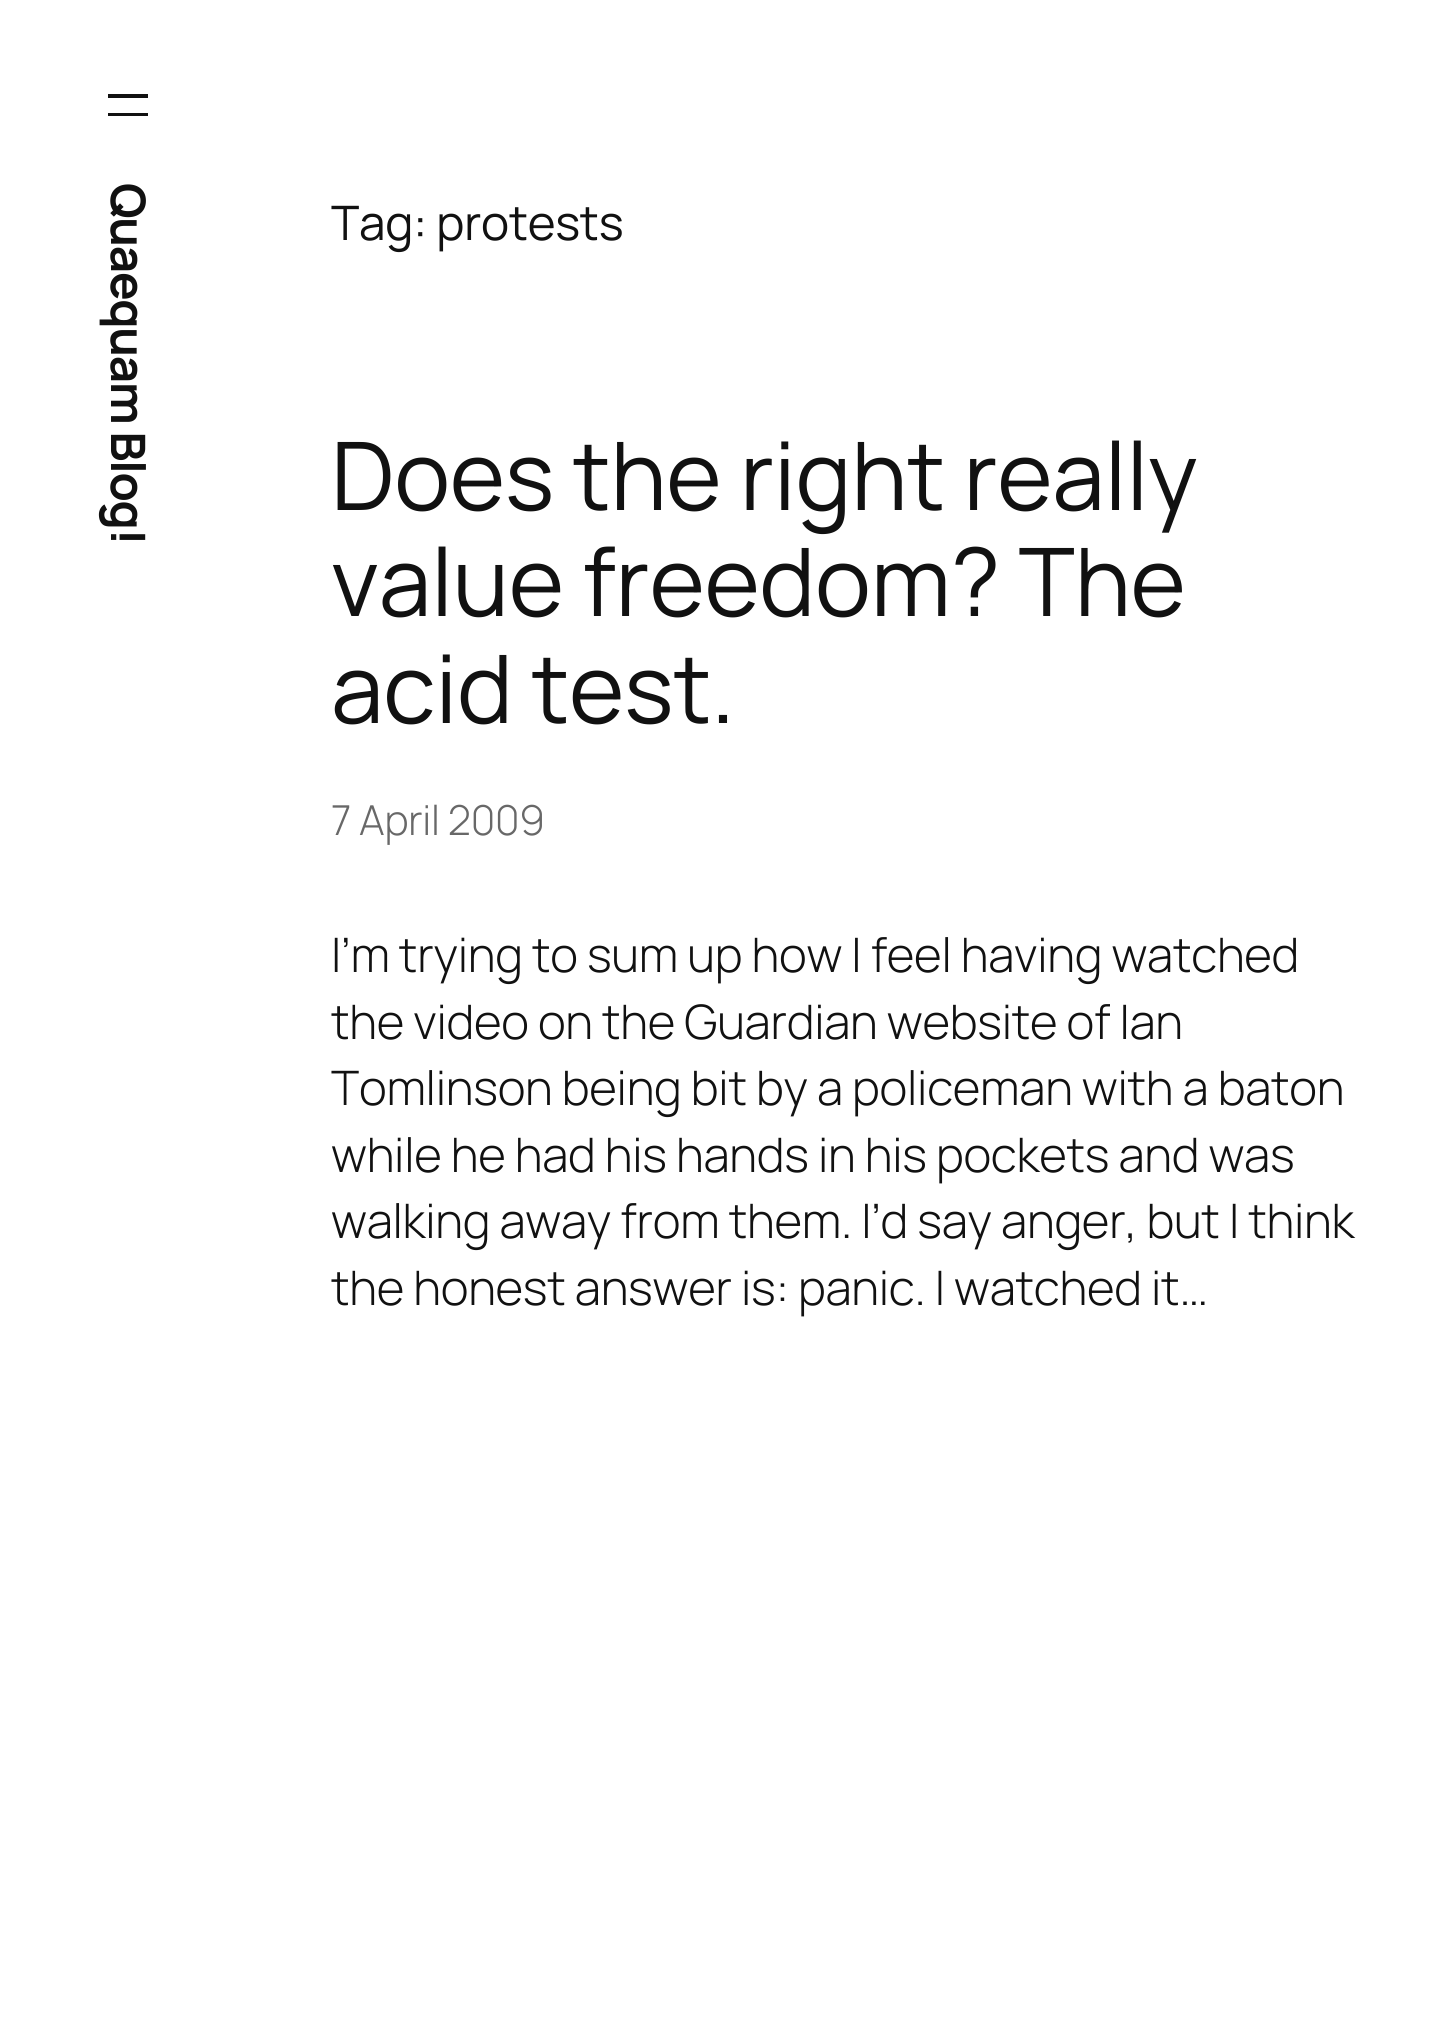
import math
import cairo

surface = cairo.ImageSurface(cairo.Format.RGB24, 1443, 2027)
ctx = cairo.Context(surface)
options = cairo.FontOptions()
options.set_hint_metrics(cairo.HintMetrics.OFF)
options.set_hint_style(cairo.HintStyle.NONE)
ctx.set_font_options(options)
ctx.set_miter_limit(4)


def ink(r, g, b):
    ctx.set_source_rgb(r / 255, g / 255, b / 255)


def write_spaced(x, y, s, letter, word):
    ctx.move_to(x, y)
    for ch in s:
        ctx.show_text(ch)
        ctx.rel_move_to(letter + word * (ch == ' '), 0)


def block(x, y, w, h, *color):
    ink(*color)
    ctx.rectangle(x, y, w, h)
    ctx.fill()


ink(255, 255, 255)
ctx.paint()
block(108, 94, 40, 4, 17, 17, 17)
block(108, 113, 40, 3, 17, 17, 17)
ctx.select_font_face("Manrope", cairo.FontSlant.NORMAL, cairo.FontWeight.BOLD)
ctx.set_font_size(47.5)
ctx.save()
ctx.translate(111, 183)
ctx.rotate(90 * math.pi / 180)
write_spaced(0, 0, "Quaequam Blog!", -1.25, 0)
ctx.restore()
ctx.select_font_face("Manrope")
write_spaced(331, 240, "Tag: protests", -0.25, 0)
ctx.set_font_size(94.5)
write_spaced(331, 510, "Does the right really", -0.25, 0)
write_spaced(331, 616, "value freedom? The", -0.25, 0)
write_spaced(331, 723, "acid test.", -0.25, 0)
ctx.select_font_face("Manrope Light")
ctx.set_font_size(41.25)
ink(104, 104, 104)
write_spaced(331, 835, "7 April 2009", -0.25, 0)
ctx.set_font_size(47.5)
ink(17, 17, 17)
write_spaced(331, 972, "I’m trying to sum up how I feel having watched", -0.25, 0)
write_spaced(331, 1039, "the video on the Guardian website of Ian", -0.25, 0)
write_spaced(331, 1105, "Tomlinson being bit by a policeman with a baton", -0.25, 0)
write_spaced(331, 1172, "while he had his hands in his pockets and was", -0.25, 0)
write_spaced(331, 1238, "walking away from them. I’d say anger, but I think", -0.25, 0)
write_spaced(331, 1305, "the honest answer is: panic. I watched it…", -0.25, 0)
surface.write_to_png("screenshot.png")
